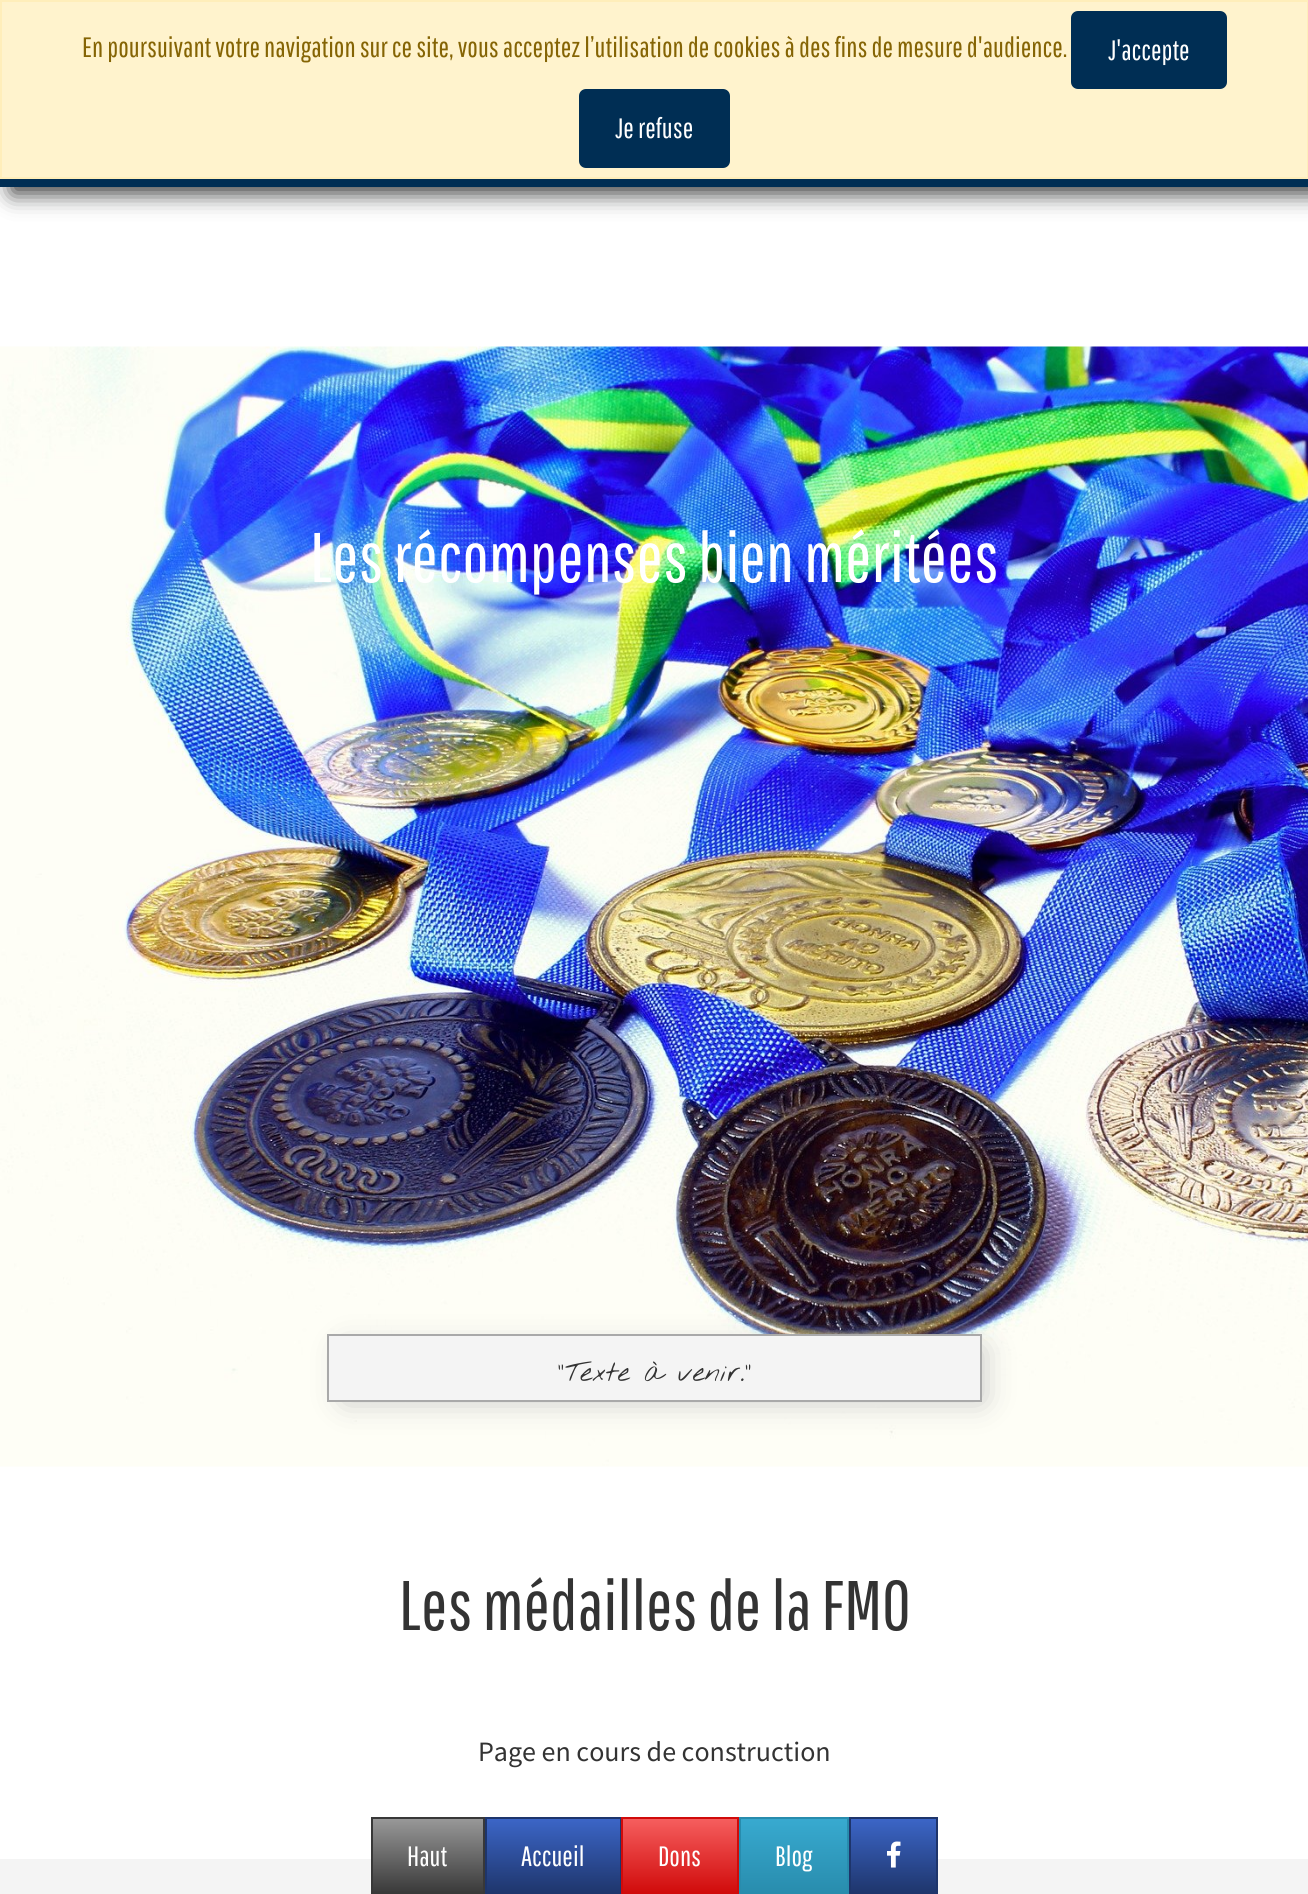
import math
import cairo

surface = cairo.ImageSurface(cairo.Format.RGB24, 1308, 1894)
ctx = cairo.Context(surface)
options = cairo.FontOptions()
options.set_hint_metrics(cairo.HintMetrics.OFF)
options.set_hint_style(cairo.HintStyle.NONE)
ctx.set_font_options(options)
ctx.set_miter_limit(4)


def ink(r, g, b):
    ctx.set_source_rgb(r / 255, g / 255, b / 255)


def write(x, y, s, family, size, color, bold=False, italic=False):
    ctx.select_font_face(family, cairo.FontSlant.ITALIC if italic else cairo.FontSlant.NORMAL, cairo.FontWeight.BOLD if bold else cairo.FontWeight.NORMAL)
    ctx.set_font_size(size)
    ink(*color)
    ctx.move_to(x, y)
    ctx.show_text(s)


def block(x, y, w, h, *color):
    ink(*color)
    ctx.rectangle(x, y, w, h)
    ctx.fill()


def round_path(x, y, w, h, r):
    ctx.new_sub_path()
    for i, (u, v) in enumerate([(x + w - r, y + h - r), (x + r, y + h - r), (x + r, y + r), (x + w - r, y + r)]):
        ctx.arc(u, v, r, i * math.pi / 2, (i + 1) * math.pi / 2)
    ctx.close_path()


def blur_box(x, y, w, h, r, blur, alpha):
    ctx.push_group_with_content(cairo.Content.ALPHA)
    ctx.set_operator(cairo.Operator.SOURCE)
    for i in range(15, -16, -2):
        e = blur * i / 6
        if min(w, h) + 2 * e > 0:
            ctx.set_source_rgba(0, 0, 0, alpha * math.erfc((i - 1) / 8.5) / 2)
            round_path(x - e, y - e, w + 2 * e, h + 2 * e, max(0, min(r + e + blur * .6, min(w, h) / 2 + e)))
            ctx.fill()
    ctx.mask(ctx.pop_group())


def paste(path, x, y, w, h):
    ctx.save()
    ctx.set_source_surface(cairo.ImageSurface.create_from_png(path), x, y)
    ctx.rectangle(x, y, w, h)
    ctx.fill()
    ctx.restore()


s1 = dict(family="Pathway Gothic One", size=28, color=(133, 100, 4))
s2 = dict(family="Pathway Gothic One", size=28, color=(255, 255, 255))
s3 = dict(family="Pathway Gothic One", size=70, color=(255, 255, 255))
s4 = dict(family="Nothing You Could Do Thin", size=28, color=(51, 51, 51))
s5 = dict(family="Pathway Gothic One", size=70, color=(51, 51, 51))
s6 = dict(family="Source Sans Pro", size=28, color=(51, 51, 51))

ink(255, 255, 255)
ctx.paint()
ink(47, 48, 48)
blur_box(12, 12, 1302, 181, 0, 11.5, 1)
block(0, 179, 1308, 8, 0, 46, 84)
ink(255, 243, 205)
ctx.rectangle(1, 1, 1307, 177)
ctx.fill_preserve()
ink(255, 238, 186)
ctx.stroke()
write(82, 57, "En poursuivant votre navigation sur ce site, vous acceptez l’utilisation de cookies à des fins de mesure d'audience.", **s1)
ink(0, 46, 84)
round_path(1071, 11, 156, 78, 7)
ctx.fill()
write(1108, 60, "J'accepte", **s2)
ink(0, 46, 84)
round_path(579, 89, 151, 79, 7)
ctx.fill()
write(615, 138, "Je refuse", **s2)
paste("pic1.png", 0, 346, 1308, 1121)
write(310, 582, "Les récompenses bien méritées", **s3)
ink(196, 196, 196)
blur_box(345, 1349, 637, 51, 0, 16, 1)
ink(244, 244, 244)
ctx.rectangle(328, 1335, 653, 66)
ctx.fill_preserve()
ink(169, 169, 169)
ctx.stroke()
write(557, 1381, "\"Texte à venir.\"", **s4)
write(399, 1630, "Les médailles de la FMO", **s5)
write(478, 1761, "Page en cours de construction", **s6)
block(0, 1859, 1308, 35, 244, 244, 244)
gradient = cairo.LinearGradient(428, 1818, 428, 1894)
gradient.add_color_stop_rgba(0, 0.6, 0.6, 0.6, 1)
gradient.add_color_stop_rgba(1, 0.22, 0.22, 0.22, 1)
ctx.set_source(gradient)
ctx.rectangle(373, 1819, 110, 75)
ctx.fill()
block(371, 1817, 114, 2, 56, 56, 56)
block(483, 1817, 2, 77, 56, 56, 56)
block(371, 1817, 2, 77, 56, 56, 56)
write(407, 1866, "Haut", **s2)
gradient = cairo.LinearGradient(553, 1818, 553, 1894)
gradient.add_color_stop_rgba(0, 0.235, 0.4, 0.784, 1)
gradient.add_color_stop_rgba(1, 0.118, 0.208, 0.42, 1)
ctx.set_source(gradient)
ctx.rectangle(487, 1819, 133, 75)
ctx.fill()
block(485, 1817, 136, 2, 30, 53, 107)
block(620, 1817, 1, 77, 30, 53, 107)
block(485, 1817, 2, 77, 30, 53, 107)
write(521, 1866, "Accueil", **s2)
gradient = cairo.LinearGradient(680, 1818, 680, 1894)
gradient.add_color_stop_rgba(0, 0.965, 0.373, 0.373, 1)
gradient.add_color_stop_rgba(1, 0.816, 0.039, 0.039, 1)
ctx.set_source(gradient)
ctx.rectangle(623, 1819, 114, 75)
ctx.fill()
block(621, 1817, 118, 2, 208, 10, 10)
block(737, 1817, 2, 77, 208, 10, 10)
block(621, 1817, 2, 77, 208, 10, 10)
write(658, 1866, "Dons", **s2)
gradient = cairo.LinearGradient(794, 1818, 794, 1894)
gradient.add_color_stop_rgba(0, 0.22, 0.667, 0.816, 1)
gradient.add_color_stop_rgba(1, 0.157, 0.549, 0.678, 1)
ctx.set_source(gradient)
ctx.rectangle(741, 1819, 106, 75)
ctx.fill()
block(739, 1817, 110, 2, 40, 140, 173)
block(847, 1817, 2, 77, 40, 140, 173)
block(739, 1817, 2, 77, 40, 140, 173)
write(775, 1866, "Blog", **s2)
gradient = cairo.LinearGradient(893, 1818, 893, 1894)
gradient.add_color_stop_rgba(0, 0.235, 0.4, 0.784, 1)
gradient.add_color_stop_rgba(1, 0.118, 0.208, 0.42, 1)
ctx.set_source(gradient)
ctx.rectangle(851, 1819, 85, 75)
ctx.fill()
block(849, 1817, 89, 2, 30, 53, 107)
block(936, 1817, 2, 77, 30, 53, 107)
block(849, 1817, 2, 77, 30, 53, 107)
paste("pic2.png", 887, 1841, 14, 27)
surface.write_to_png("screenshot.png")
